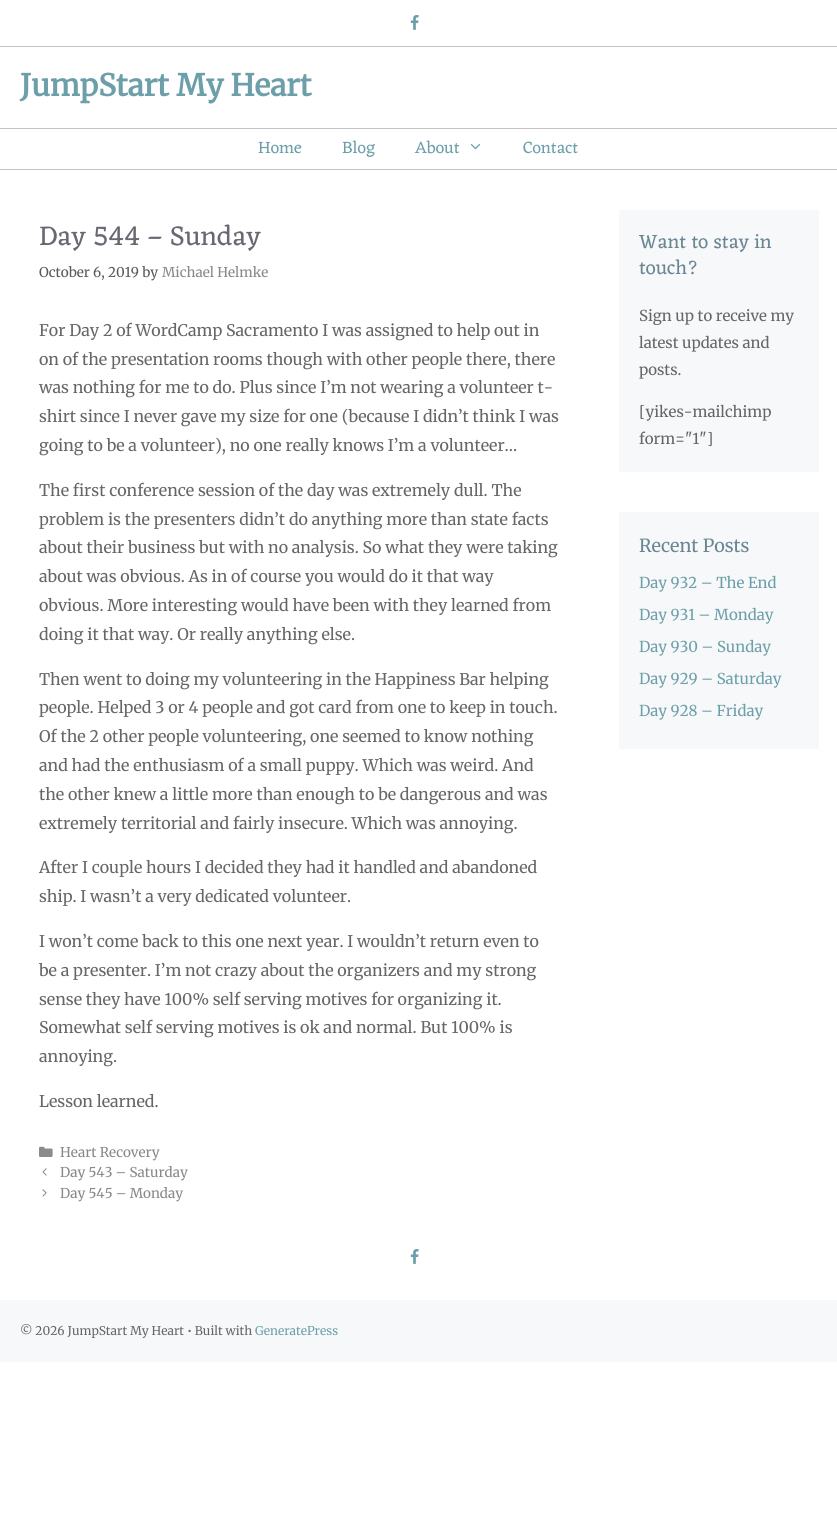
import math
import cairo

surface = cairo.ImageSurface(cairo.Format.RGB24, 837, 1539)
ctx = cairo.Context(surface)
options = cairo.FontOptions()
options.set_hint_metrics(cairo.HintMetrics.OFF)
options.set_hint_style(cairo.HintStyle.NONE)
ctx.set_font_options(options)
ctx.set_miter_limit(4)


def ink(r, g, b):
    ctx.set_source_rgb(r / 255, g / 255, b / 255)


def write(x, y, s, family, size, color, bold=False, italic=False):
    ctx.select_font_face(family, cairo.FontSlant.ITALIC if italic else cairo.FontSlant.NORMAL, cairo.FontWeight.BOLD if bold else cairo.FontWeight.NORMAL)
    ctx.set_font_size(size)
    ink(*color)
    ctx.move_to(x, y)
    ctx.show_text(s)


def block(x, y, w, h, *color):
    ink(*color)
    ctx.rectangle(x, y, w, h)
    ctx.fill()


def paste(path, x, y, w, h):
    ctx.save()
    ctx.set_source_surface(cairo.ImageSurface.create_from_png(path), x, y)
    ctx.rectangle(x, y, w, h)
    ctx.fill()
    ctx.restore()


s1 = dict(family="Merriweather", size=30, color=(109, 159, 170), bold=True)
s2 = dict(family="Eczar", size=17, color=(109, 159, 170))
s3 = dict(family="Eczar", size=28, color=(103, 104, 114))
s4 = dict(family="Merriweather Light", size=13.5, color=(89, 89, 89))
s5 = dict(family="Merriweather Light", size=13.5, color=(136, 136, 136))
s6 = dict(family="Merriweather Light", size=16, color=(102, 102, 102))
s7 = dict(family="Eczar", size=20, color=(106, 134, 147))
s8 = dict(family="Merriweather Light", size=15, color=(102, 102, 102))
s9 = dict(family="Merriweather Light", size=18, color=(106, 134, 147))
s10 = dict(family="Merriweather Light", size=15, color=(109, 159, 170))
s11 = dict(family="Merriweather Light", size=12, color=(102, 102, 102))
s12 = dict(family="Merriweather Light", size=12, color=(109, 159, 170))

ink(255, 255, 255)
ctx.paint()
block(0, 46, 837, 1, 196, 196, 196)
paste("pic1.png", 410, 15, 9, 15)
write(20, 96, "JumpStart My Heart", **s1)
block(0, 128, 837, 1, 196, 196, 196)
block(0, 169, 837, 1, 196, 196, 196)
write(258, 153, "Home", **s2)
write(342, 153, "Blog", **s2)
write(415, 153, "About", **s2)
paste("pic2.png", 470, 143, 11, 7)
write(523, 153, "Contact", **s2)
write(39, 245, "Day 544 – Sunday", **s3)
write(39, 277, "October 6, 2019 by", **s4)
write(162, 277, "Michael Helmke", **s5)
write(39, 336, "For Day 2 of WordCamp Sacramento I was assigned to help out in", **s6)
write(39, 365, "on of the presentation rooms though with other people there, there", **s6)
write(39, 393, "was nothing for me to do. Plus since I’m not wearing a volunteer t-", **s6)
write(39, 422, "shirt since I never gave my size for one (because I didn’t think I was", **s6)
write(39, 451, "going to be a volunteer), no one really knows I’m a volunteer…", **s6)
write(39, 496, "The first conference session of the day was extremely dull. The", **s6)
write(39, 525, "problem is the presenters didn’t do anything more than state facts", **s6)
write(39, 553, "about their business but with no analysis. So what they were taking", **s6)
write(39, 582, "about was obvious. As in of course you would do it that way", **s6)
write(39, 611, "obvious. More interesting would have been with they learned from", **s6)
write(39, 640, "doing it that way. Or really anything else.", **s6)
write(39, 685, "Then went to doing my volunteering in the Happiness Bar helping", **s6)
write(39, 713, "people. Helped 3 or 4 people and got card from one to keep in touch.", **s6)
write(39, 742, "Of the 2 other people volunteering, one seemed to know nothing", **s6)
write(39, 771, "and had the enthusiasm of a small puppy. Which was weird. And", **s6)
write(39, 800, "the other knew a little more than enough to be dangerous and was", **s6)
write(39, 829, "extremely territorial and fairly insecure. Which was annoying.", **s6)
write(39, 873, "After I couple hours I decided they had it handled and abandoned", **s6)
write(39, 902, "ship. I wasn’t a very dedicated volunteer.", **s6)
write(39, 947, "I won’t come back to this one next year. I wouldn’t return even to", **s6)
write(39, 976, "be a presenter. I’m not crazy about the organizers and my strong", **s6)
write(39, 1005, "sense they have 100% self serving motives for organizing it.", **s6)
write(39, 1033, "Somewhat self serving motives is ok and normal. But 100% is", **s6)
write(39, 1062, "annoying.", **s6)
write(39, 1107, "Lesson learned.", **s6)
paste("pic3.png", 39, 1146, 14, 11)
write(60, 1157, "Heart Recovery", **s5)
paste("pic4.png", 42, 1168, 5, 8)
write(60, 1177, "Day 543 – Saturday", **s5)
paste("pic5.png", 42, 1189, 5, 8)
write(60, 1198, "Day 545 – Monday", **s5)
block(619, 210, 200, 262, 247, 248, 249)
write(639, 248, "Want to stay in", **s7)
write(639, 274, "touch?", **s7)
write(639, 321, "Sign up to receive my", **s8)
write(639, 348, "latest updates and", **s8)
write(639, 375, "posts.", **s8)
write(639, 417, "[yikes-mailchimp", **s8)
write(639, 444, "form=\"1\"]", **s8)
block(619, 512, 200, 237, 247, 248, 249)
write(639, 552, "Recent Posts", **s9)
write(639, 588, "Day 932 – The End", **s10)
write(639, 620, "Day 931 – Monday", **s10)
write(639, 652, "Day 930 – Sunday", **s10)
write(639, 684, "Day 929 – Saturday", **s10)
write(639, 716, "Day 928 – Friday", **s10)
paste("pic1.png", 410, 1249, 9, 15)
block(0, 1300, 837, 62, 247, 248, 249)
write(20, 1335, "© 2026 JumpStart My Heart • Built with", **s11)
write(255, 1335, "GeneratePress", **s12)
surface.write_to_png("screenshot.png")
